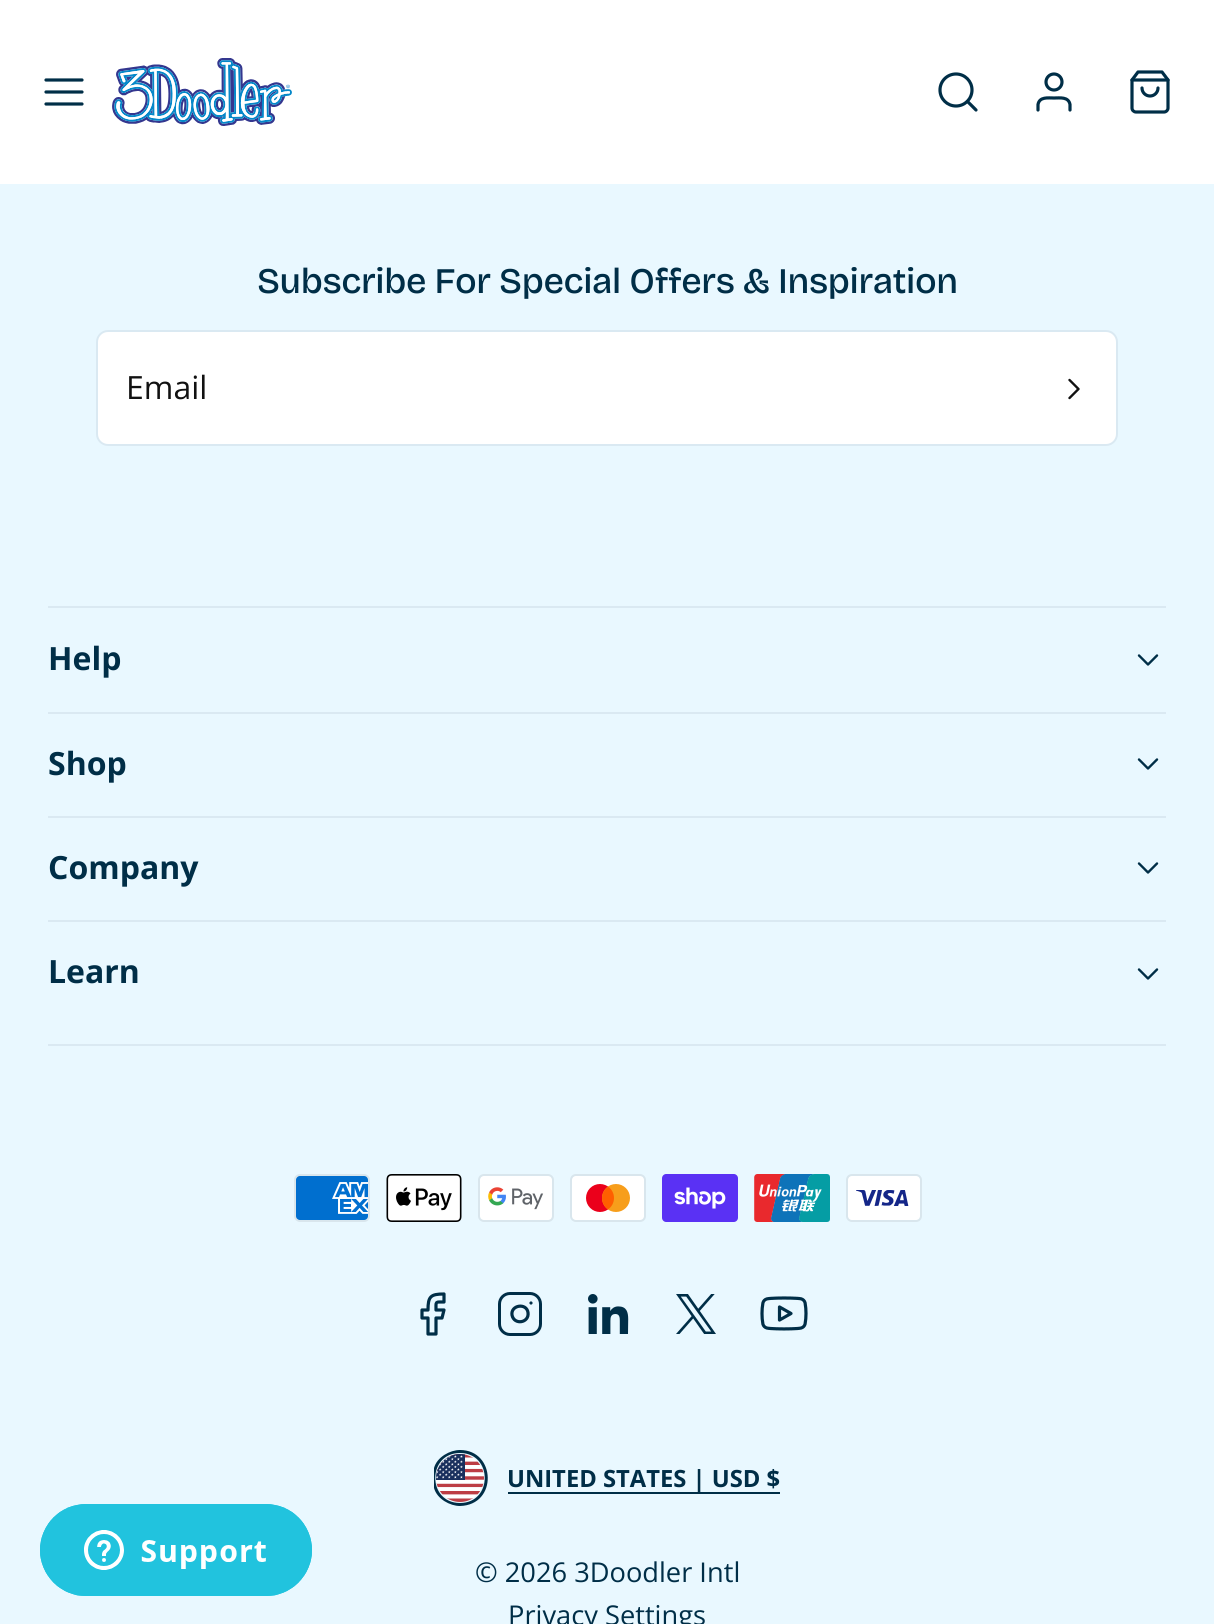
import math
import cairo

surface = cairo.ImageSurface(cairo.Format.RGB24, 1214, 1624)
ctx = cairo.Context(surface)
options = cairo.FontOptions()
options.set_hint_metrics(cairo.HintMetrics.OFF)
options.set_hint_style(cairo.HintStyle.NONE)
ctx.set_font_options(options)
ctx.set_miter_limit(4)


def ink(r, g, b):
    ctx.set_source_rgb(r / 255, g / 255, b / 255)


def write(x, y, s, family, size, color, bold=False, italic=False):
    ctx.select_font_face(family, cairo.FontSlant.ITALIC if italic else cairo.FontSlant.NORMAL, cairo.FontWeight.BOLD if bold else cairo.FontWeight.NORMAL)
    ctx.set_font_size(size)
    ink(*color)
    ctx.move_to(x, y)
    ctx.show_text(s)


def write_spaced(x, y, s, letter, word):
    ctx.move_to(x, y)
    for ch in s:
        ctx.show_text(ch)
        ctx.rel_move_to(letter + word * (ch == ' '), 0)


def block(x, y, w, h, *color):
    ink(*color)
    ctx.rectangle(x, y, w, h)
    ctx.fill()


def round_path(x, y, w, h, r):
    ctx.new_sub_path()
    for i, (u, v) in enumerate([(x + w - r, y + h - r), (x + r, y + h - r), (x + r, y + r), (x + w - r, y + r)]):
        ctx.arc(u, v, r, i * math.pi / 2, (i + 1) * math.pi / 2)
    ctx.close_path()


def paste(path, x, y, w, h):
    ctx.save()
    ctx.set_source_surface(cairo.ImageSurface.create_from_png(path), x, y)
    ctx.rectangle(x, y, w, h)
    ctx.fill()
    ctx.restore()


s1 = dict(family="Open Sans", size=32, color=(17, 17, 17))
s2 = dict(family="Open Sans", size=32, color=(0, 46, 71), bold=True)
s3 = dict(family="Open Sans", size=23.75, color=(0, 46, 71), bold=True)
s4 = dict(family="Open Sans", size=27.25, color=(0, 46, 71))

ink(233, 248, 255)
ctx.paint()
block(0, 0, 1214, 184, 255, 255, 255)
ctx.new_path()
ctx.move_to(46, 92)
ctx.line_to(82, 92)
ctx.move_to(46, 80)
ctx.line_to(82, 80)
ctx.move_to(46, 104)
ctx.line_to(82, 104)
ink(0, 46, 71)
ctx.set_line_width(3.2)
ctx.set_line_cap(cairo.LineCap.ROUND)
ctx.set_line_join(cairo.LineJoin.ROUND)
ctx.stroke()
paste("pic1.png", 112, 58, 180, 68)
ctx.arc(956, 90, 16, 0, 2 * math.pi)
ctx.set_line_cap(cairo.LineCap.BUTT)
ctx.set_line_join(cairo.LineJoin.MITER)
ctx.stroke()
ctx.new_path()
ctx.move_to(976, 110)
ctx.line_to(967.5, 101.5)
ctx.set_line_cap(cairo.LineCap.ROUND)
ctx.set_line_join(cairo.LineJoin.ROUND)
ctx.stroke()
ctx.new_path()
ctx.move_to(1070, 110)
ctx.line_to(1070, 104.5)
ctx.curve_to(1068.5, 96.5, 1060, 98, 1054, 98)
ctx.curve_to(1048, 98, 1039.5, 96.5, 1038, 104.5)
ctx.line_to(1038, 110)
ctx.stroke()
ctx.arc(1054, 82, 8, 0, 2 * math.pi)
ctx.set_line_cap(cairo.LineCap.BUTT)
ctx.set_line_join(cairo.LineJoin.MITER)
ctx.stroke()
paste("pic2.png", 1130, 70, 40, 44)
ctx.select_font_face("Bricolage Grotesque Medium")
ctx.set_font_size(36)
write_spaced(257, 293, "Subscribe For Special Offers & Inspiration", -0.35, 0)
ink(255, 255, 255)
round_path(97, 331, 1020, 114, 11)
ctx.fill_preserve()
ink(218, 233, 242)
ctx.set_line_width(2)
ctx.stroke()
write(126, 399, "Email", **s1)
ctx.new_path()
ctx.move_to(1069.5, 398)
ctx.line_to(1078.5, 389)
ctx.line_to(1069.5, 380)
ctx.set_line_width(2.4)
ctx.set_line_cap(cairo.LineCap.ROUND)
ctx.set_line_join(cairo.LineJoin.ROUND)
ctx.stroke()
block(48, 606, 1118, 2, 218, 233, 242)
write(48, 670, "Help", **s2)
ctx.new_path()
ctx.move_to(1139, 655.5)
ctx.line_to(1148, 664.5)
ctx.line_to(1157, 655.5)
ctx.stroke()
block(48, 712, 1118, 2, 218, 233, 242)
write(48, 775, "Shop", **s2)
ctx.new_path()
ctx.move_to(1139, 759.5)
ctx.line_to(1148, 768.5)
ctx.line_to(1157, 759.5)
ctx.stroke()
block(48, 816, 1118, 2, 218, 233, 242)
write(48, 879, "Company", **s2)
ctx.new_path()
ctx.move_to(1139, 863.5)
ctx.line_to(1148, 872.5)
ctx.line_to(1157, 863.5)
ctx.stroke()
block(48, 920, 1118, 2, 218, 233, 242)
write(48, 983, "Learn", **s2)
ctx.new_path()
ctx.move_to(1139, 969.5)
ctx.line_to(1148, 978.5)
ctx.line_to(1157, 969.5)
ctx.stroke()
block(48, 1044, 1118, 2, 218, 233, 242)
paste("pic3.png", 294, 1174, 76, 48)
paste("pic4.png", 386, 1174, 76, 48)
paste("pic5.png", 478, 1174, 76, 48)
paste("pic6.png", 570, 1174, 76, 48)
paste("pic7.png", 662, 1174, 76, 48)
paste("pic8.png", 754, 1174, 76, 48)
paste("pic9.png", 846, 1174, 76, 48)
ctx.new_path()
ctx.move_to(444, 1294)
ctx.curve_to(430.5, 1294, 428, 1296.5, 428, 1310)
ctx.line_to(422, 1310)
ctx.line_to(422, 1318)
ctx.line_to(428, 1318)
ctx.line_to(428, 1334)
ctx.line_to(436, 1334)
ctx.line_to(436, 1318)
ctx.line_to(442, 1318)
ctx.line_to(444, 1310)
ctx.line_to(436, 1310)
ctx.curve_to(436, 1301, 435, 1302, 444, 1302)
ctx.close_path()
ink(0, 46, 71)
ctx.set_line_width(3.2)
ctx.stroke()
round_path(499.5, 1293.5, 41, 41, 10.5)
ctx.set_line_width(3)
ctx.set_line_cap(cairo.LineCap.BUTT)
ctx.set_line_join(cairo.LineJoin.MITER)
ctx.stroke()
ctx.new_path()
ctx.move_to(528, 1312.5)
ctx.curve_to(529.5, 1323, 514, 1325.5, 512, 1315)
ctx.curve_to(510.5, 1305, 526.5, 1302.5, 528, 1312.5)
ctx.close_path()
ctx.move_to(531, 1303)
ctx.line_to(531, 1303)
ctx.set_line_width(3.2)
ctx.set_line_cap(cairo.LineCap.ROUND)
ctx.set_line_join(cairo.LineJoin.ROUND)
ctx.stroke()
paste("pic10.png", 588, 1294, 41, 40)
paste("pic11.png", 676, 1294, 40, 40)
paste("pic12.png", 760, 1296, 48, 35)
ctx.set_fill_rule(cairo.FillRule.EVEN_ODD)
ctx.new_path()
ctx.move_to(460, 1450)
ctx.curve_to(496, 1450, 498, 1505, 460, 1506)
ctx.curve_to(450, 1506, 437, 1499, 434, 1488)
ctx.line_to(434, 1468)
ctx.curve_to(437, 1457, 450, 1450, 460, 1450)
ctx.close_path()
ctx.move_to(460, 1453)
ctx.curve_to(427, 1453, 427, 1503, 460, 1503)
ctx.curve_to(493, 1503, 493, 1453, 460, 1453)
ctx.close_path()
ctx.fill()
paste("pic13.png", 436, 1454, 48, 48)
block(508, 1492, 272, 2, 0, 46, 71)
write(507, 1487, "UNITED STATES | USD $", **s3)
write(475, 1582, "© 2026 3Doodler Intl", **s4)
write(508, 1625, "Privacy Settings", **s4)
paste("pic14.png", 40, 1504, 272, 92)
paste("pic15.png", 40, 1504, 272, 92)
surface.write_to_png("screenshot.png")
